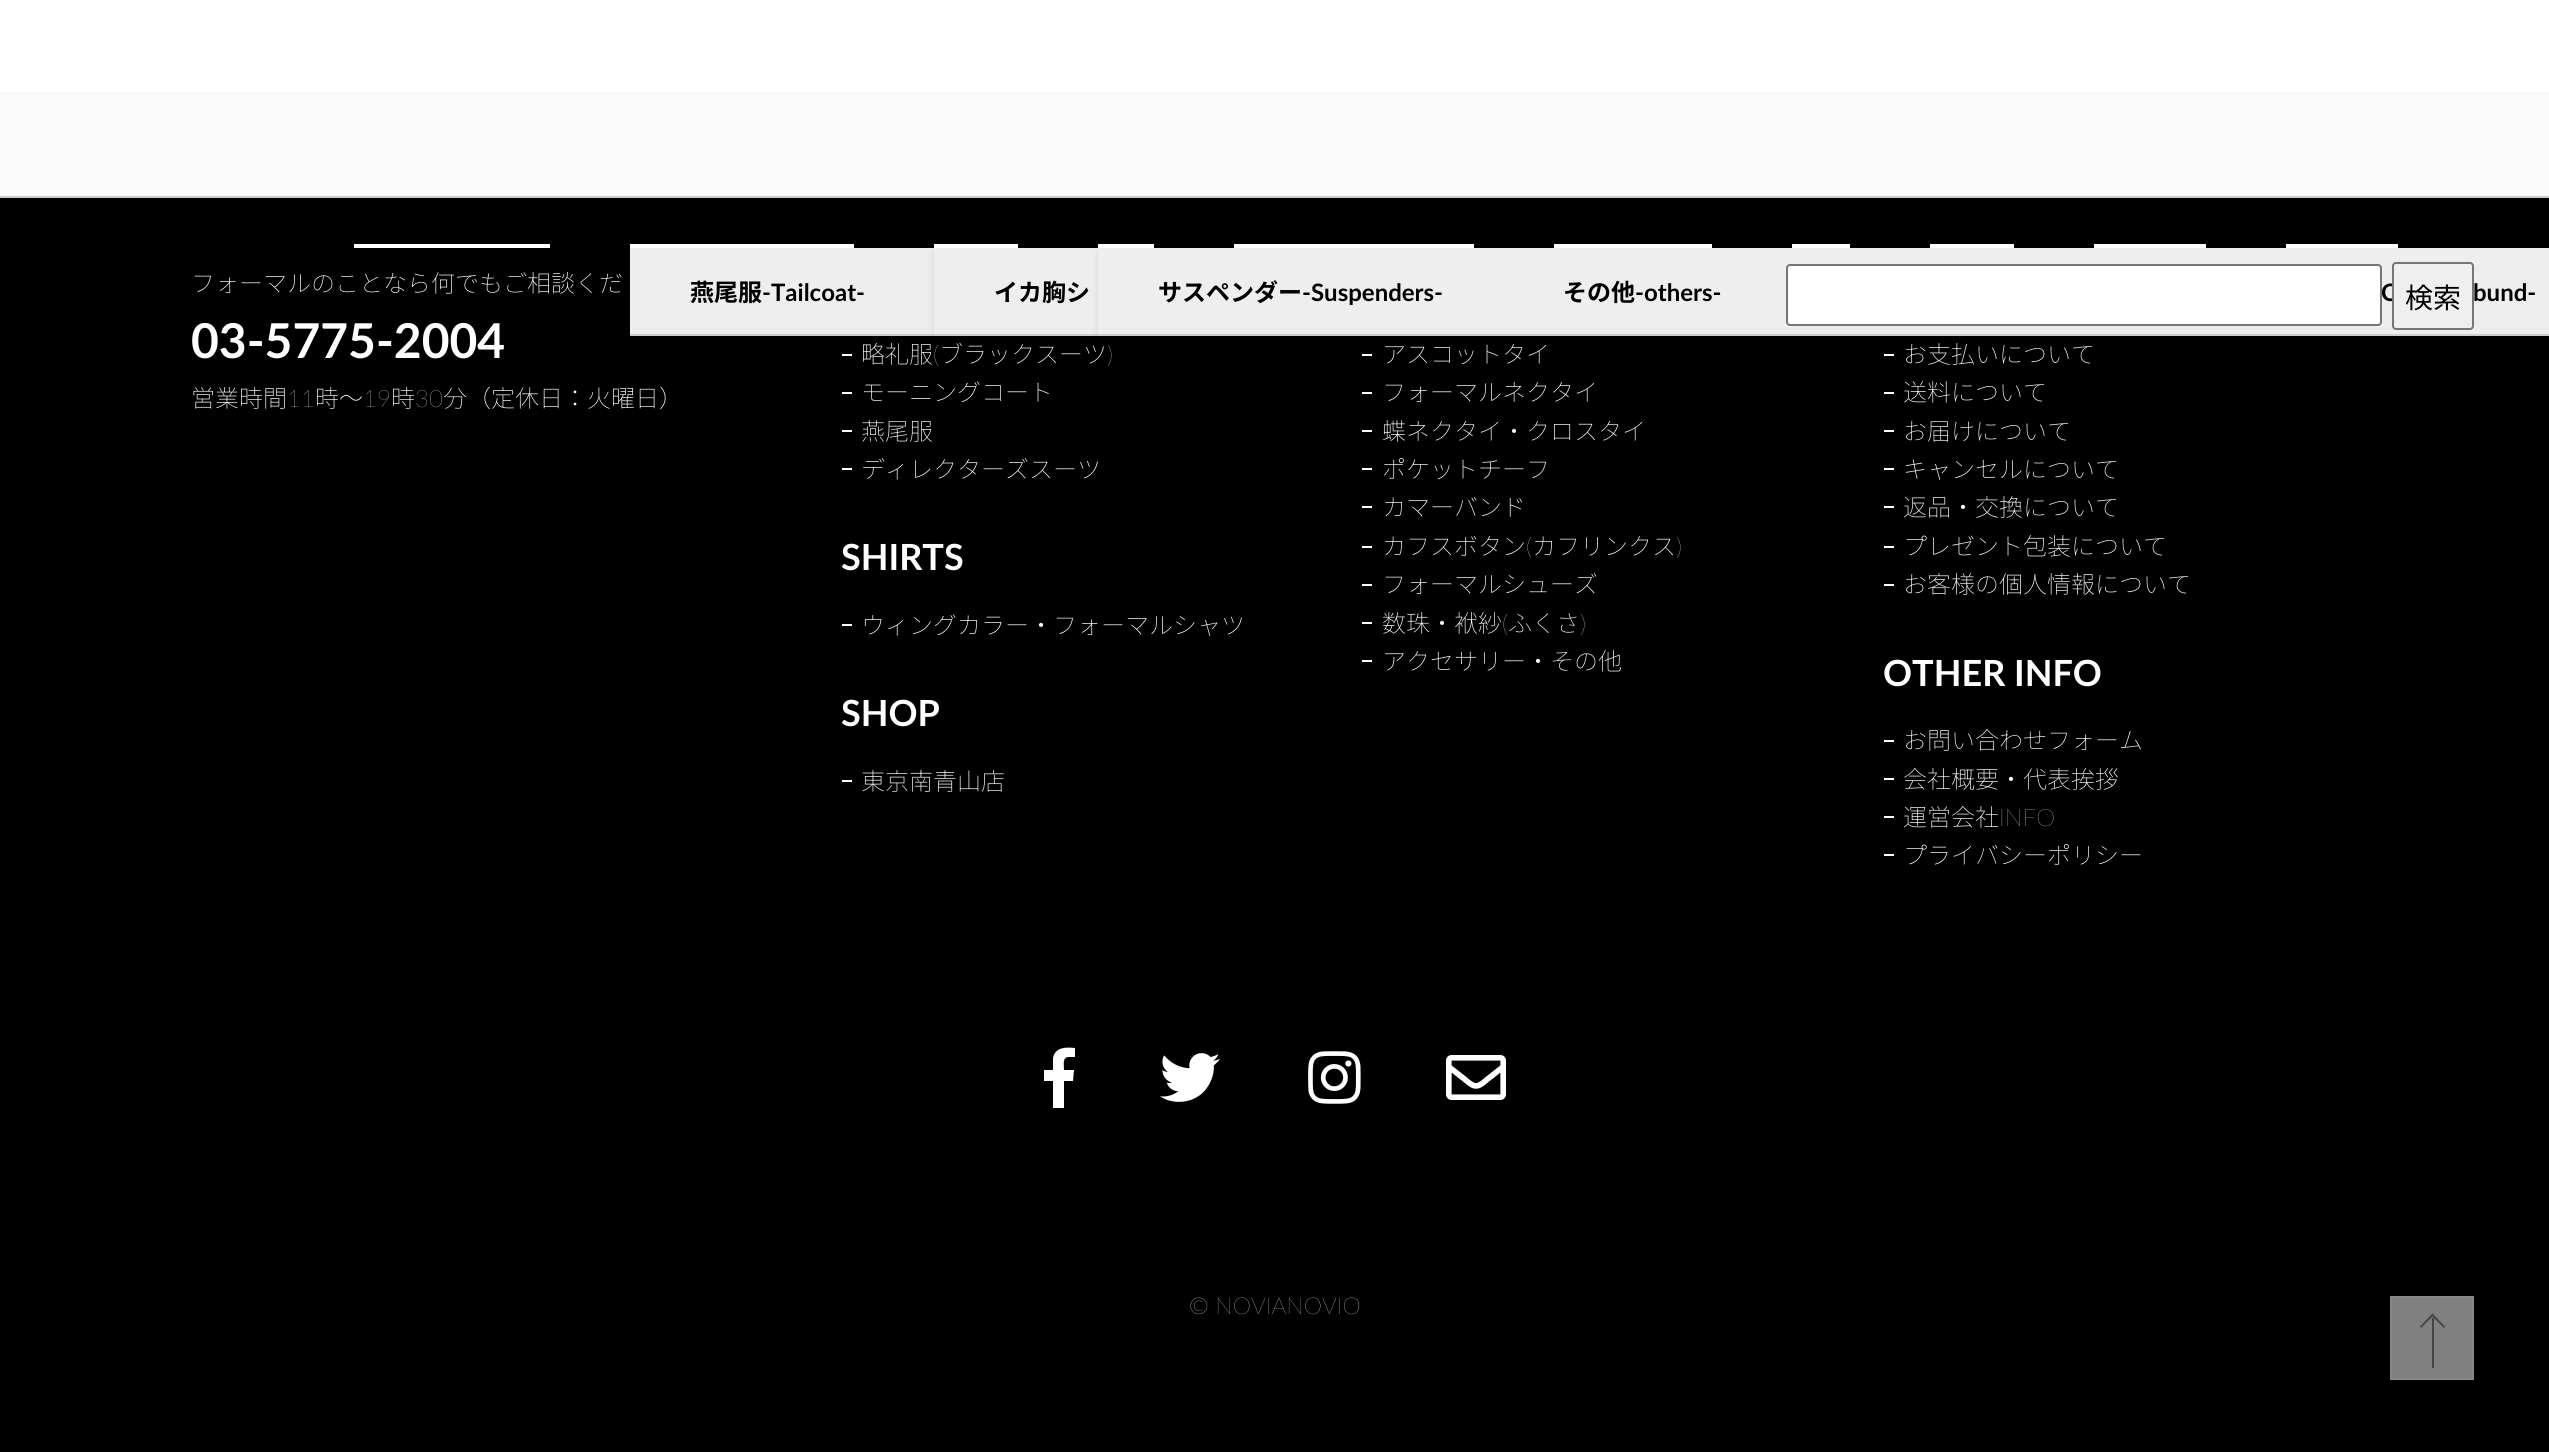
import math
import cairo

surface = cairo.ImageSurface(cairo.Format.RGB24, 2549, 1452)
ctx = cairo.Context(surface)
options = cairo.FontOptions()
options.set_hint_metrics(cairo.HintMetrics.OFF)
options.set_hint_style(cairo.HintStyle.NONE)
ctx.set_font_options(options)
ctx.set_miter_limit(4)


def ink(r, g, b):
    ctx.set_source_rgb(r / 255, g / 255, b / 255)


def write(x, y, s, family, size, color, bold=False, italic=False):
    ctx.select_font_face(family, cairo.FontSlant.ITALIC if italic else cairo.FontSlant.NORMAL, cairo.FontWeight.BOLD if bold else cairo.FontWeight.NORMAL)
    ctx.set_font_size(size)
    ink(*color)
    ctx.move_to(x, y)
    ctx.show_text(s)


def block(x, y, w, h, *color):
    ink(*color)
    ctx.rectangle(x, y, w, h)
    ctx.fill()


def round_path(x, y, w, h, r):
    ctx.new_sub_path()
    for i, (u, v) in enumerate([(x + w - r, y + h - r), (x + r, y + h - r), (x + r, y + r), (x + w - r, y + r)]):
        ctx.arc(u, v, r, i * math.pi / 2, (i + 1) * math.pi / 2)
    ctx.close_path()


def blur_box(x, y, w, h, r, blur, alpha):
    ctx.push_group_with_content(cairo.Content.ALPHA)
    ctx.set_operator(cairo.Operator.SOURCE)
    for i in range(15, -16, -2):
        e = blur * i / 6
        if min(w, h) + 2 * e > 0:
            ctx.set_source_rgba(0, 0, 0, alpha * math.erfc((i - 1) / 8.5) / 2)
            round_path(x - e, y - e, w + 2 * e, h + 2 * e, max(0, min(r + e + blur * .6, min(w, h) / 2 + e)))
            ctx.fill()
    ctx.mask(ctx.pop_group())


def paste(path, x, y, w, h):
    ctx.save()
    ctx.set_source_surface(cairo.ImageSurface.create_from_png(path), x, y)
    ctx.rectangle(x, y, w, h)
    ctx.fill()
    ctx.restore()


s1 = dict(family="Noto Sans JP Thin", size=24, color=(255, 255, 255))
s2 = dict(family="Lato", size=48, color=(255, 255, 255), bold=True)
s3 = dict(family="Lato ExtraLight", size=24, color=(255, 255, 255))
s4 = dict(family="Lato", size=36, color=(255, 255, 255), bold=True)
s5 = dict(family="Lato ExtraLight", size=23.25, color=(255, 255, 255))
s6 = dict(family="Noto Sans JP", size=24, color=(0, 0, 0), bold=True)
s7 = dict(family="Lato", size=24, color=(0, 0, 0), bold=True)
s8 = dict(family="Noto Sans JP", size=28, color=(0, 0, 0))

ink(255, 255, 255)
ctx.paint()
block(0, 198, 2549, 1254, 0, 0, 1)
block(0, 92, 2549, 104, 250, 250, 250)
write(191, 292, "フォーマルのことなら何でもご相談くだ", **s1)
write(191, 358, "03-5775-2004", **s2)
write(191, 407, "営業時間", **s1)
write(287, 407, "11", **s3)
write(315, 407, "時～", **s1)
write(363, 407, "19", **s3)
write(391, 407, "時", **s1)
write(415, 407, "30", **s3)
write(443, 407, "分（定休日：火曜日）", **s1)
block(842, 354, 10, 2, 255, 255, 255)
write(861, 363, "略礼服", **s1)
write(933, 363, "(", **s3)
write(939, 363, "ブラックスーツ", **s1)
write(1107, 363, ")", **s3)
block(842, 392, 10, 2, 255, 255, 255)
write(861, 401, "モーニングコート", **s1)
block(842, 430, 10, 2, 255, 255, 255)
write(861, 440, "燕尾服", **s1)
block(842, 468, 10, 2, 255, 255, 255)
write(861, 478, "ディレクターズスーツ", **s1)
write(841, 570, "SHIRTS", **s4)
block(842, 624, 10, 2, 255, 255, 255)
write(861, 634, "ウィングカラー・フォーマルシャツ", **s1)
write(841, 726, "SHOP", **s4)
block(842, 780, 10, 2, 255, 255, 255)
write(861, 790, "東京南青山店", **s1)
block(1362, 354, 10, 2, 255, 255, 255)
write(1382, 363, "アスコットタイ", **s1)
block(1362, 392, 10, 2, 255, 255, 255)
write(1382, 401, "フォーマルネクタイ", **s1)
block(1362, 430, 10, 2, 255, 255, 255)
write(1382, 440, "蝶ネクタイ・クロスタイ", **s1)
block(1362, 468, 10, 2, 255, 255, 255)
write(1382, 478, "ポケットチーフ", **s1)
block(1362, 506, 10, 2, 255, 255, 255)
write(1382, 516, "カマーバンド", **s1)
block(1362, 546, 10, 2, 255, 255, 255)
write(1382, 555, "カフスボタン", **s1)
write(1526, 555, "(", **s3)
write(1532, 555, "カフリンクス", **s1)
write(1676, 555, ")", **s3)
block(1362, 584, 10, 2, 255, 255, 255)
write(1382, 593, "フォーマルシューズ", **s1)
block(1362, 622, 10, 2, 255, 255, 255)
write(1382, 632, "数珠・袱紗", **s1)
write(1502, 632, "(", **s3)
write(1508, 632, "ふくさ", **s1)
write(1580, 632, ")", **s3)
block(1362, 660, 10, 2, 255, 255, 255)
write(1382, 670, "アクセサリー・その他", **s1)
block(1884, 354, 10, 2, 255, 255, 255)
write(1903, 363, "お支払いについて", **s1)
block(1884, 392, 10, 2, 255, 255, 255)
write(1903, 401, "送料について", **s1)
block(1884, 430, 10, 2, 255, 255, 255)
write(1903, 440, "お届けについて", **s1)
block(1884, 468, 10, 2, 255, 255, 255)
write(1903, 478, "キャンセルについて", **s1)
block(1884, 506, 10, 2, 255, 255, 255)
write(1903, 516, "返品・交換について", **s1)
block(1884, 546, 10, 2, 255, 255, 255)
write(1903, 555, "プレゼント包装について", **s1)
block(1884, 584, 10, 2, 255, 255, 255)
write(1903, 593, "お客様の個人情報について", **s1)
write(1883, 686, "OTHER INFO", **s4)
block(1884, 740, 10, 2, 255, 255, 255)
write(1903, 749, "お問い合わせフォーム", **s1)
block(1884, 778, 10, 2, 255, 255, 255)
write(1903, 788, "会社概要・代表挨拶", **s1)
block(1884, 816, 10, 2, 255, 255, 255)
write(1903, 826, "運営会社", **s1)
write(1999, 826, "INFO", **s3)
block(1884, 854, 10, 2, 255, 255, 255)
write(1903, 864, "プライバシーポリシー", **s1)
ctx.new_path()
ctx.move_to(1069, 1057)
ctx.curve_to(1062, 1057, 1064, 1065, 1064, 1070)
ctx.line_to(1074, 1070)
ctx.line_to(1073, 1081)
ctx.line_to(1064, 1081)
ctx.line_to(1064, 1108)
ctx.line_to(1053, 1108)
ctx.line_to(1053, 1081)
ctx.line_to(1044, 1081)
ctx.line_to(1044, 1070)
ctx.line_to(1053, 1070)
ctx.line_to(1053, 1058)
ctx.curve_to(1055, 1047, 1066, 1047, 1075, 1048)
ctx.line_to(1075, 1057)
ctx.close_path()
ctx.fill()
paste("pic1.png", 1160, 1053, 60, 49)
paste("pic2.png", 1308, 1051, 53, 53)
paste("pic3.png", 1446, 1055, 60, 45)
write(1189, 1314, "© NOVIANOVIO", **s5)
block(0, 196, 2549, 2, 202, 202, 202)
block(354, 244, 196, 4, 255, 255, 255)
block(1234, 244, 240, 4, 255, 255, 255)
block(1554, 244, 158, 4, 255, 255, 255)
block(1792, 244, 58, 4, 255, 255, 255)
block(1930, 244, 84, 4, 255, 255, 255)
block(2094, 244, 112, 4, 255, 255, 255)
block(2286, 244, 112, 4, 255, 255, 255)
block(630, 244, 224, 4, 255, 255, 255)
block(630, 248, 304, 86, 238, 238, 238)
block(630, 334, 304, 2, 206, 206, 206)
write(690, 301, "燕尾服", **s6)
write(762, 301, "‐Tailcoat‐", **s7)
block(934, 244, 84, 4, 255, 255, 255)
ink(0, 0, 0)
blur_box(934, 252, 84, 88, 0, 4, 0.1)
block(934, 248, 164, 86, 238, 238, 238)
block(934, 334, 164, 2, 206, 206, 206)
write(994, 301, "イカ胸シ", **s6)
block(1098, 244, 56, 4, 255, 255, 255)
ink(0, 0, 0)
blur_box(1098, 252, 56, 88, 0, 4, 0.1)
block(1098, 248, 1451, 86, 238, 238, 238)
block(1098, 334, 1451, 2, 206, 206, 206)
write(1158, 301, "サスペンダー", **s6)
write(1302, 301, "‐Suspenders‐", **s7)
write(1563, 301, "その他", **s6)
write(1635, 301, "‐others‐", **s7)
write(2381, 301, "C", **s7)
write(2473, 301, "bund‐", **s7)
ink(255, 255, 255)
round_path(1787, 265, 594, 60, 3)
ctx.fill_preserve()
ink(118, 118, 118)
ctx.stroke()
ink(239, 239, 239)
round_path(2393, 263, 80, 66, 3)
ctx.fill_preserve()
ink(118, 118, 118)
ctx.stroke()
write(2405, 308, "検索", **s8)
ink(128, 128, 128)
ctx.rectangle(2391, 1297, 82, 82)
ctx.fill_preserve()
ink(136, 136, 136)
ctx.stroke()
block(2432, 1318, 2, 50, 68, 68, 68)
ctx.new_path()
ctx.move_to(2420, 1326.5)
ctx.line_to(2432.5, 1313.5)
ctx.line_to(2434, 1315)
ctx.line_to(2421, 1328)
ctx.close_path()
ctx.fill()
ctx.new_path()
ctx.move_to(2431, 1315)
ctx.line_to(2432.5, 1313.5)
ctx.line_to(2445, 1326.5)
ctx.line_to(2444, 1328)
ctx.close_path()
ctx.fill()
surface.write_to_png("screenshot.png")
